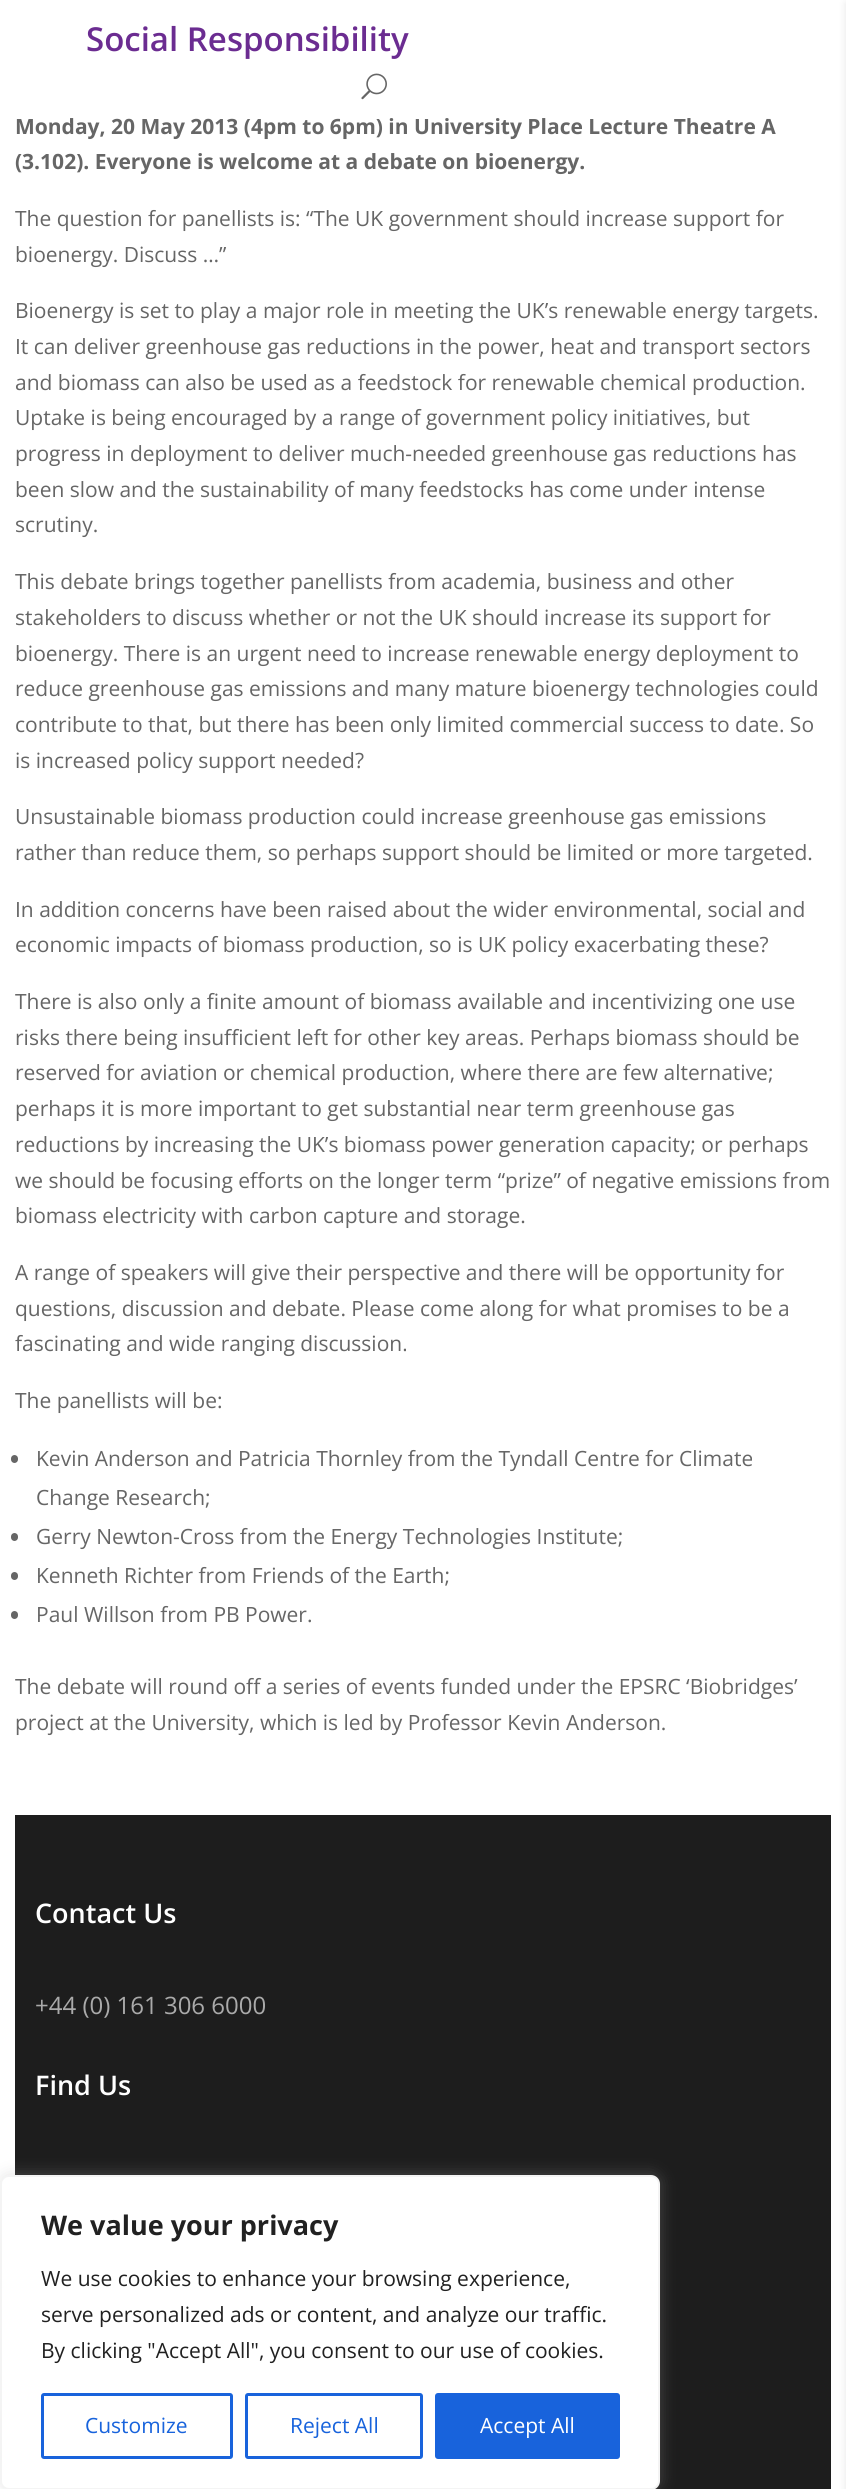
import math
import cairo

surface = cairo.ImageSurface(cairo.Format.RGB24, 846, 2489)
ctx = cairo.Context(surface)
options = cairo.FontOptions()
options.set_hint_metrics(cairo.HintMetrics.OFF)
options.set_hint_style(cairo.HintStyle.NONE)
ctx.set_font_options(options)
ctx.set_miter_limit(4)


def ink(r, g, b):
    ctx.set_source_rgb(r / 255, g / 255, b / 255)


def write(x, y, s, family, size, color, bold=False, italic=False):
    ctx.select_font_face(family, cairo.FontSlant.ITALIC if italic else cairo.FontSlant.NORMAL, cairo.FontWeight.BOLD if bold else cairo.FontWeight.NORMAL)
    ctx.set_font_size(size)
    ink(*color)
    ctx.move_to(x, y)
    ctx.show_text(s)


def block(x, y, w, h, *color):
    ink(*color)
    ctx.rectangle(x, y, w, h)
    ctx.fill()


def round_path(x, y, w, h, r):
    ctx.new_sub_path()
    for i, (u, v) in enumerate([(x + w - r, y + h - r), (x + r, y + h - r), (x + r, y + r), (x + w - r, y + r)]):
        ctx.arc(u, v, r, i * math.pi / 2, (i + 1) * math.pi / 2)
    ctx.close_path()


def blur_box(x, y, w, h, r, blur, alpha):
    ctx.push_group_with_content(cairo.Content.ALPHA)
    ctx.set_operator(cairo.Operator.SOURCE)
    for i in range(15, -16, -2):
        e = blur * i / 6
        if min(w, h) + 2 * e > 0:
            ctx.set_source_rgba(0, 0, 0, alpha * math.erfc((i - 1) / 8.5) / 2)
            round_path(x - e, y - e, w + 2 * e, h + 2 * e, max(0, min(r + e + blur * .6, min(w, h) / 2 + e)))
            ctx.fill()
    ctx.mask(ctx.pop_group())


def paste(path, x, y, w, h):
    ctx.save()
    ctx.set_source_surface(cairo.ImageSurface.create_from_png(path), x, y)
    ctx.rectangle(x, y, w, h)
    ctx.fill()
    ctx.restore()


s1 = dict(family="Open Sans SemiBold", size=33, color=(107, 44, 145))
s2 = dict(family="Open Sans", size=21, color=(102, 102, 102), bold=True)
s3 = dict(family="Open Sans", size=21, color=(102, 102, 102))
s4 = dict(family="Open Sans SemiBold", size=27, color=(255, 255, 255))
s5 = dict(family="Open Sans", size=24, color=(170, 170, 170))
s6 = dict(family="Open Sans", size=27, color=(33, 33, 33), bold=True)
s7 = dict(family="Open Sans", size=21, color=(33, 33, 33))
s8 = dict(family="Open Sans", size=21, color=(24, 99, 220))
s9 = dict(family="Open Sans", size=21, color=(255, 255, 255))

ink(255, 255, 255)
ctx.paint()
write(86, 51, "Social Responsibility", **s1)
paste("pic1.png", 361, 73, 26, 27)
ink(0, 0, 0)
blur_box(846, 3, 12, 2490, 0, 4, 0.1)
write(15, 134, "Monday, 20 May 2013 (4pm to 6pm) in University Place Lecture Theatre A", **s2)
write(15, 169, "(3.102). Everyone is welcome at a debate on bioenergy.", **s2)
write(15, 226, "The question for panellists is: “The UK government should increase support for", **s3)
write(15, 262, "bioenergy. Discuss …”", **s3)
write(15, 318, "Bioenergy is set to play a major role in meeting the UK’s renewable energy targets.", **s3)
write(15, 354, "It can deliver greenhouse gas reductions in the power, heat and transport sectors", **s3)
write(15, 390, "and biomass can also be used as a feedstock for renewable chemical production.", **s3)
write(15, 425, "Uptake is being encouraged by a range of government policy initiatives, but", **s3)
write(15, 461, "progress in deployment to deliver much-needed greenhouse gas reductions has", **s3)
write(15, 497, "been slow and the sustainability of many feedstocks has come under intense", **s3)
write(15, 532, "scrutiny.", **s3)
write(15, 589, "This debate brings together panellists from academia, business and other", **s3)
write(15, 625, "stakeholders to discuss whether or not the UK should increase its support for", **s3)
write(15, 661, "bioenergy. There is an urgent need to increase renewable energy deployment to", **s3)
write(15, 696, "reduce greenhouse gas emissions and many mature bioenergy technologies could", **s3)
write(15, 732, "contribute to that, but there has been only limited commercial success to date. So", **s3)
write(15, 768, "is increased policy support needed?", **s3)
write(15, 824, "Unsustainable biomass production could increase greenhouse gas emissions", **s3)
write(15, 860, "rather than reduce them, so perhaps support should be limited or more targeted.", **s3)
write(15, 917, "In addition concerns have been raised about the wider environmental, social and", **s3)
write(15, 952, "economic impacts of biomass production, so is UK policy exacerbating these?", **s3)
write(15, 1009, "There is also only a finite amount of biomass available and incentivizing one use", **s3)
write(15, 1045, "risks there being insufficient left for other key areas. Perhaps biomass should be", **s3)
write(15, 1080, "reserved for aviation or chemical production, where there are few alternative;", **s3)
write(15, 1116, "perhaps it is more important to get substantial near term greenhouse gas", **s3)
write(15, 1152, "reductions by increasing the UK’s biomass power generation capacity; or perhaps", **s3)
write(15, 1188, "we should be focusing efforts on the longer term “prize” of negative emissions from", **s3)
write(15, 1223, "biomass electricity with carbon capture and storage.", **s3)
write(15, 1280, "A range of speakers will give their perspective and there will be opportunity for", **s3)
write(15, 1316, "questions, discussion and debate. Please come along for what promises to be a", **s3)
write(15, 1351, "fascinating and wide ranging discussion.", **s3)
write(15, 1408, "The panellists will be:", **s3)
round_path(11, 1455, 7, 8, 3.5)
ctx.fill()
write(36, 1466, "Kevin Anderson and Patricia Thornley from the Tyndall Centre for Climate", **s3)
write(36, 1505, "Change Research;", **s3)
round_path(11, 1533, 7, 8, 3.5)
ctx.fill()
write(36, 1544, "Gerry Newton-Cross from the Energy Technologies Institute;", **s3)
round_path(11, 1572, 7, 8, 3.5)
ctx.fill()
write(36, 1583, "Kenneth Richter from Friends of the Earth;", **s3)
round_path(11, 1611, 7, 8, 3.5)
ctx.fill()
write(36, 1622, "Paul Willson from PB Power.", **s3)
write(15, 1694, "The debate will round off a series of events funded under the EPSRC ‘Biobridges’", **s3)
write(15, 1730, "project at the University, which is led by Professor Kevin Anderson.", **s3)
block(15, 1815, 816, 674, 29, 29, 29)
write(35, 1923, "Contact Us", **s4)
write(35, 2014, "+44 (0) 161 306 6000", **s5)
write(35, 2095, "Find Us", **s4)
ink(172, 171, 171)
blur_box(0, 2174, 660, 315, 9, 7.5, 0.3)
ink(255, 255, 255)
round_path(1, 2176, 658, 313, 8)
ctx.fill_preserve()
ink(244, 244, 244)
ctx.stroke()
write(41, 2235, "We value your privacy", **s6)
write(41, 2286, "We use cookies to enhance your browsing experience,", **s7)
write(41, 2322, "serve personalized ads or content, and analyze our traffic.", **s7)
write(41, 2358, "By clicking \"Accept All\", you consent to our use of cookies.", **s7)
round_path(42.5, 2394.5, 189, 63, 1.5)
ink(24, 99, 220)
ctx.set_line_width(3)
ctx.stroke()
write(85, 2433, "Customize", **s8)
round_path(246.5, 2394.5, 175, 63, 1.5)
ctx.stroke()
write(290, 2433, "Reject All", **s8)
round_path(436.5, 2394.5, 182, 63, 1.5)
ctx.fill_preserve()
ctx.stroke()
write(480, 2433, "Accept All", **s9)
surface.write_to_png("screenshot.png")
